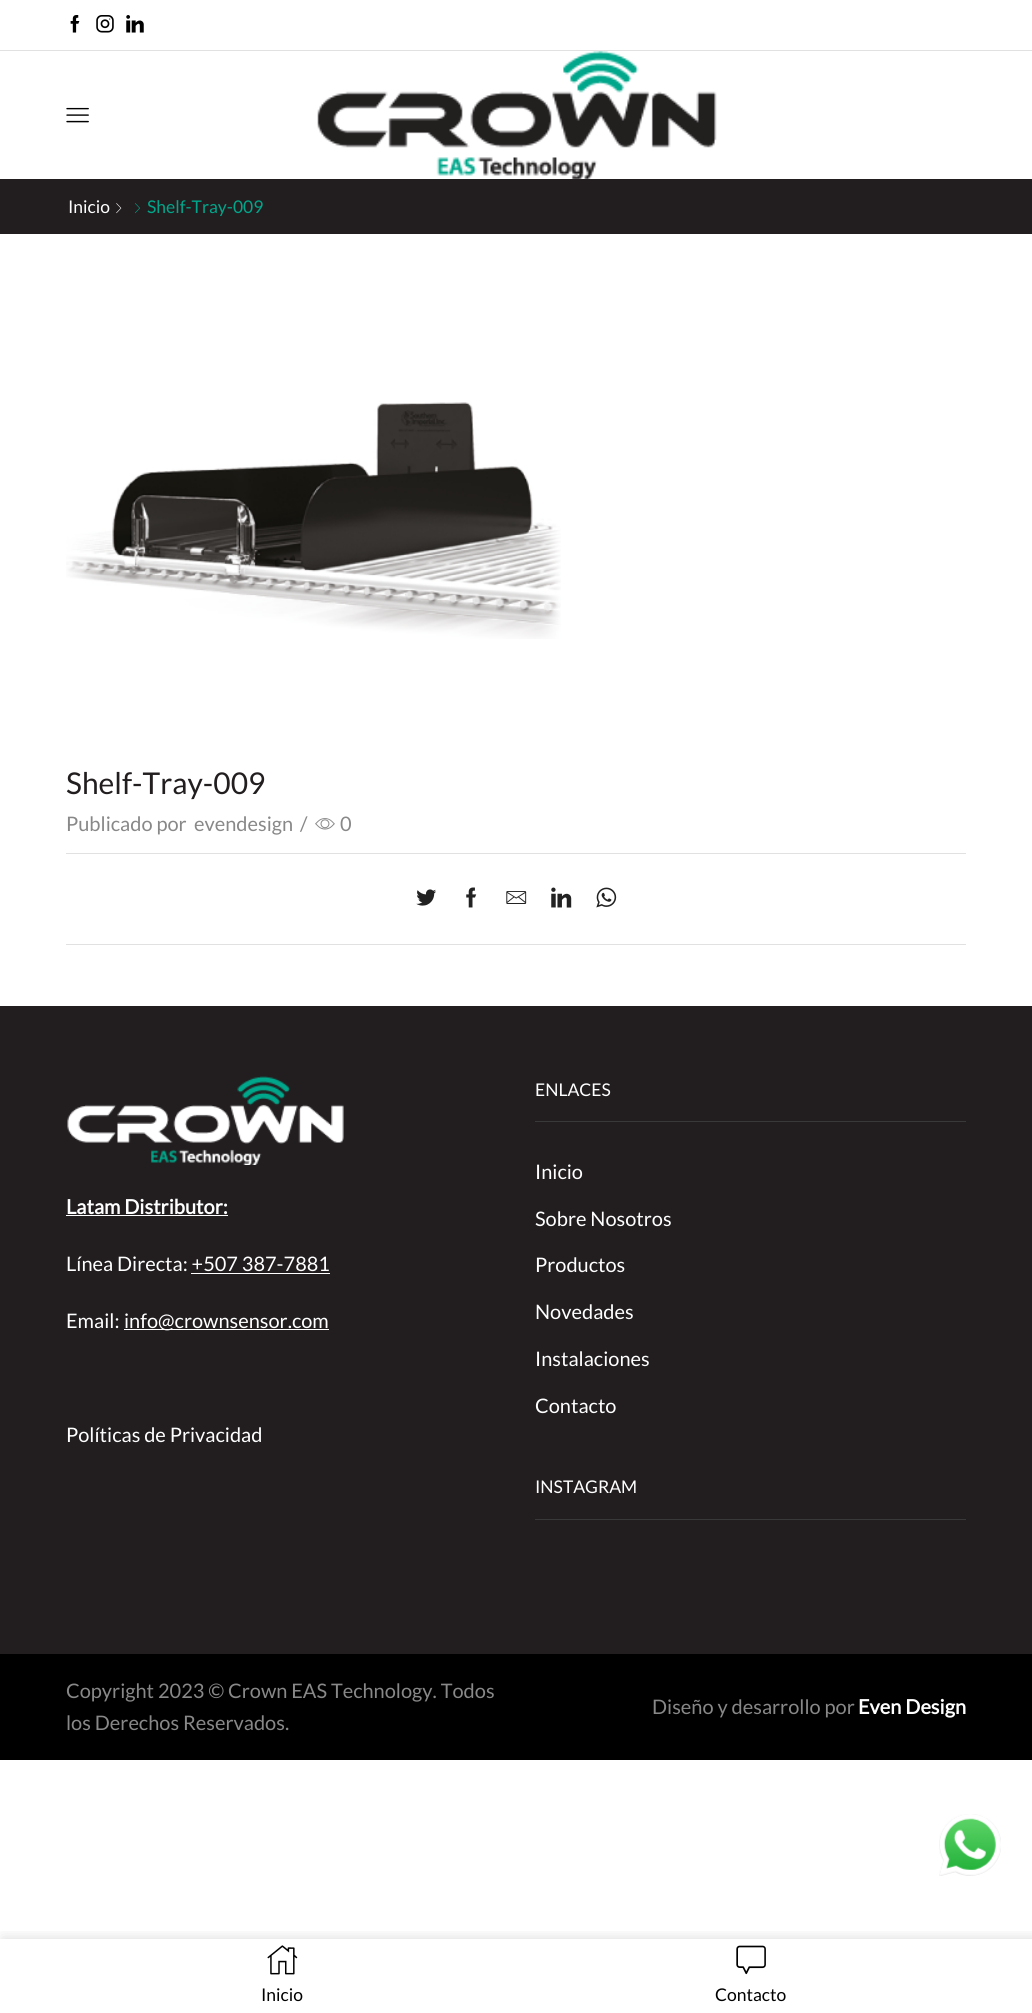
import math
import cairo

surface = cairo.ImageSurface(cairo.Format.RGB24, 1032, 2013)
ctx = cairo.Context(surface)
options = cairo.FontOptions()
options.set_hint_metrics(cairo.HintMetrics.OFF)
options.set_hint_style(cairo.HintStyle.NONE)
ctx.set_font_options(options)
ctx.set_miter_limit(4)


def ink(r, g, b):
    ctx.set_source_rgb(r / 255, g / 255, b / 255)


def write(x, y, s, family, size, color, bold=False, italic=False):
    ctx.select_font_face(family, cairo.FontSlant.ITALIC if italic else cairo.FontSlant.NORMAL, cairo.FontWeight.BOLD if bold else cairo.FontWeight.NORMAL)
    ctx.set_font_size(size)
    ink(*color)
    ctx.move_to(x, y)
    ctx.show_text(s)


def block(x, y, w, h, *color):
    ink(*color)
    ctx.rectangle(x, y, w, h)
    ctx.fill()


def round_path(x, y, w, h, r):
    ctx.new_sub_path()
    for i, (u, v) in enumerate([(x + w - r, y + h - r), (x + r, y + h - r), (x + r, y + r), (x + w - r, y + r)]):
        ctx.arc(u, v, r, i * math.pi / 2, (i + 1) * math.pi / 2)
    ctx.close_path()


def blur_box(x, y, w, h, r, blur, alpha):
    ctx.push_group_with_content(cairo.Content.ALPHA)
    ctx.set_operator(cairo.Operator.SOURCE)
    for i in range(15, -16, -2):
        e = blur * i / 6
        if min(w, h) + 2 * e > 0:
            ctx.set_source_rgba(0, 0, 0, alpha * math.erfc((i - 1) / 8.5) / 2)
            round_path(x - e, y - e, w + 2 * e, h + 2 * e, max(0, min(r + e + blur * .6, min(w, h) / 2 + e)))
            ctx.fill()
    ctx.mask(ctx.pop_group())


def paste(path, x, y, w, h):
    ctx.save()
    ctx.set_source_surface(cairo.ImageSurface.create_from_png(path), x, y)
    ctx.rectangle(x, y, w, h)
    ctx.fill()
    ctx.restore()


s1 = dict(family="Lato", size=17.5, color=(255, 255, 255))
s2 = dict(family="Lato", size=17.5, color=(0, 166, 139))
s3 = dict(family="Lato", size=30, color=(34, 30, 31))
s4 = dict(family="Lato", size=20, color=(136, 136, 136))
s5 = dict(family="Lato", size=20, color=(255, 255, 255), bold=True)
s6 = dict(family="Lato", size=20, color=(255, 255, 255))
s7 = dict(family="Lato", size=17.5, color=(0, 0, 0))

ink(255, 255, 255)
ctx.paint()
block(0, 50, 1032, 1, 225, 225, 225)
paste("pic1.png", 70, 15, 10, 18)
paste("pic2.png", 96, 15, 18, 18)
paste("pic3.png", 126, 15, 18, 18)
paste("pic4.png", 66, 107, 23, 16)
paste("pic5.png", 317, 51, 400, 128)
block(0, 179, 1032, 55, 34, 30, 31)
write(68, 213, "Inicio", **s1)
paste("pic6.png", 116, 203, 6, 11)
paste("pic7.png", 135, 203, 5, 11)
write(147, 213, "Shelf-Tray-009", **s2)
paste("pic8.png", 66, 402, 495, 237)
write(66, 794, "Shelf-Tray-009", **s3)
write(66, 831, "Publicado por", **s4)
write(194, 831, "evendesign", **s4)
write(300, 831, "/", **s4)
paste("pic9.png", 315, 818, 20, 12)
write(340, 831, "0", **s4)
block(66, 853, 900, 1, 225, 225, 225)
block(66, 944, 900, 1, 225, 225, 225)
paste("pic10.png", 416, 889, 20, 17)
paste("pic11.png", 466, 887, 11, 21)
paste("pic12.png", 506, 891, 21, 13)
paste("pic13.png", 551, 887, 21, 21)
paste("pic14.png", 596, 887, 21, 21)
block(0, 1006, 1032, 648, 34, 30, 31)
paste("pic15.png", 67, 1076, 277, 89)
write(66, 1214, "Latam Distributor:", **s5)
block(66, 1215, 162, 1, 255, 255, 255)
write(66, 1271, "Línea Directa: +507 387-7881", **s6)
block(191, 1273, 139, 1, 255, 255, 255)
write(66, 1328, "Email:", **s6)
block(124, 1329, 205, 1, 255, 255, 255)
write(124, 1328, "info@crownsensor.com", **s6)
write(66, 1442, "Políticas de Privacidad", **s6)
block(535, 1121, 431, 1, 57, 57, 57)
write(535, 1096, "ENLACES", **s1)
write(535, 1179, "Inicio", **s6)
write(535, 1226, "Sobre Nosotros", **s6)
write(535, 1272, "Productos", **s6)
write(535, 1319, "Novedades", **s6)
write(535, 1366, "Instalaciones", **s6)
write(535, 1413, "Contacto", **s6)
block(535, 1519, 431, 1, 57, 57, 57)
write(535, 1493, "INSTAGRAM", **s1)
block(0, 1654, 1032, 106, 0, 0, 0)
write(66, 1698, "Copyright 2023 © Crown EAS Technology. Todos", **s4)
write(66, 1730, "los Derechos Reservados.", **s4)
write(652, 1714, "Diseño y desarrollo por", **s4)
write(858, 1714, "Even Design", **s5)
ctx.save()
ctx.rectangle(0, 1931, 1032, 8)
ctx.clip()
ink(0, 0, 0)
blur_box(3, 1939, 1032, 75, 0, 7.5, 0.15)
ctx.restore()
paste("pic16.png", 267, 1945, 31, 30)
write(261, 2001, "Inicio", **s7)
paste("pic17.png", 736, 1945, 30, 30)
write(715, 2001, "Contacto", **s7)
paste("pic18.png", 939, 1814, 62, 62)
surface.write_to_png("screenshot.png")
